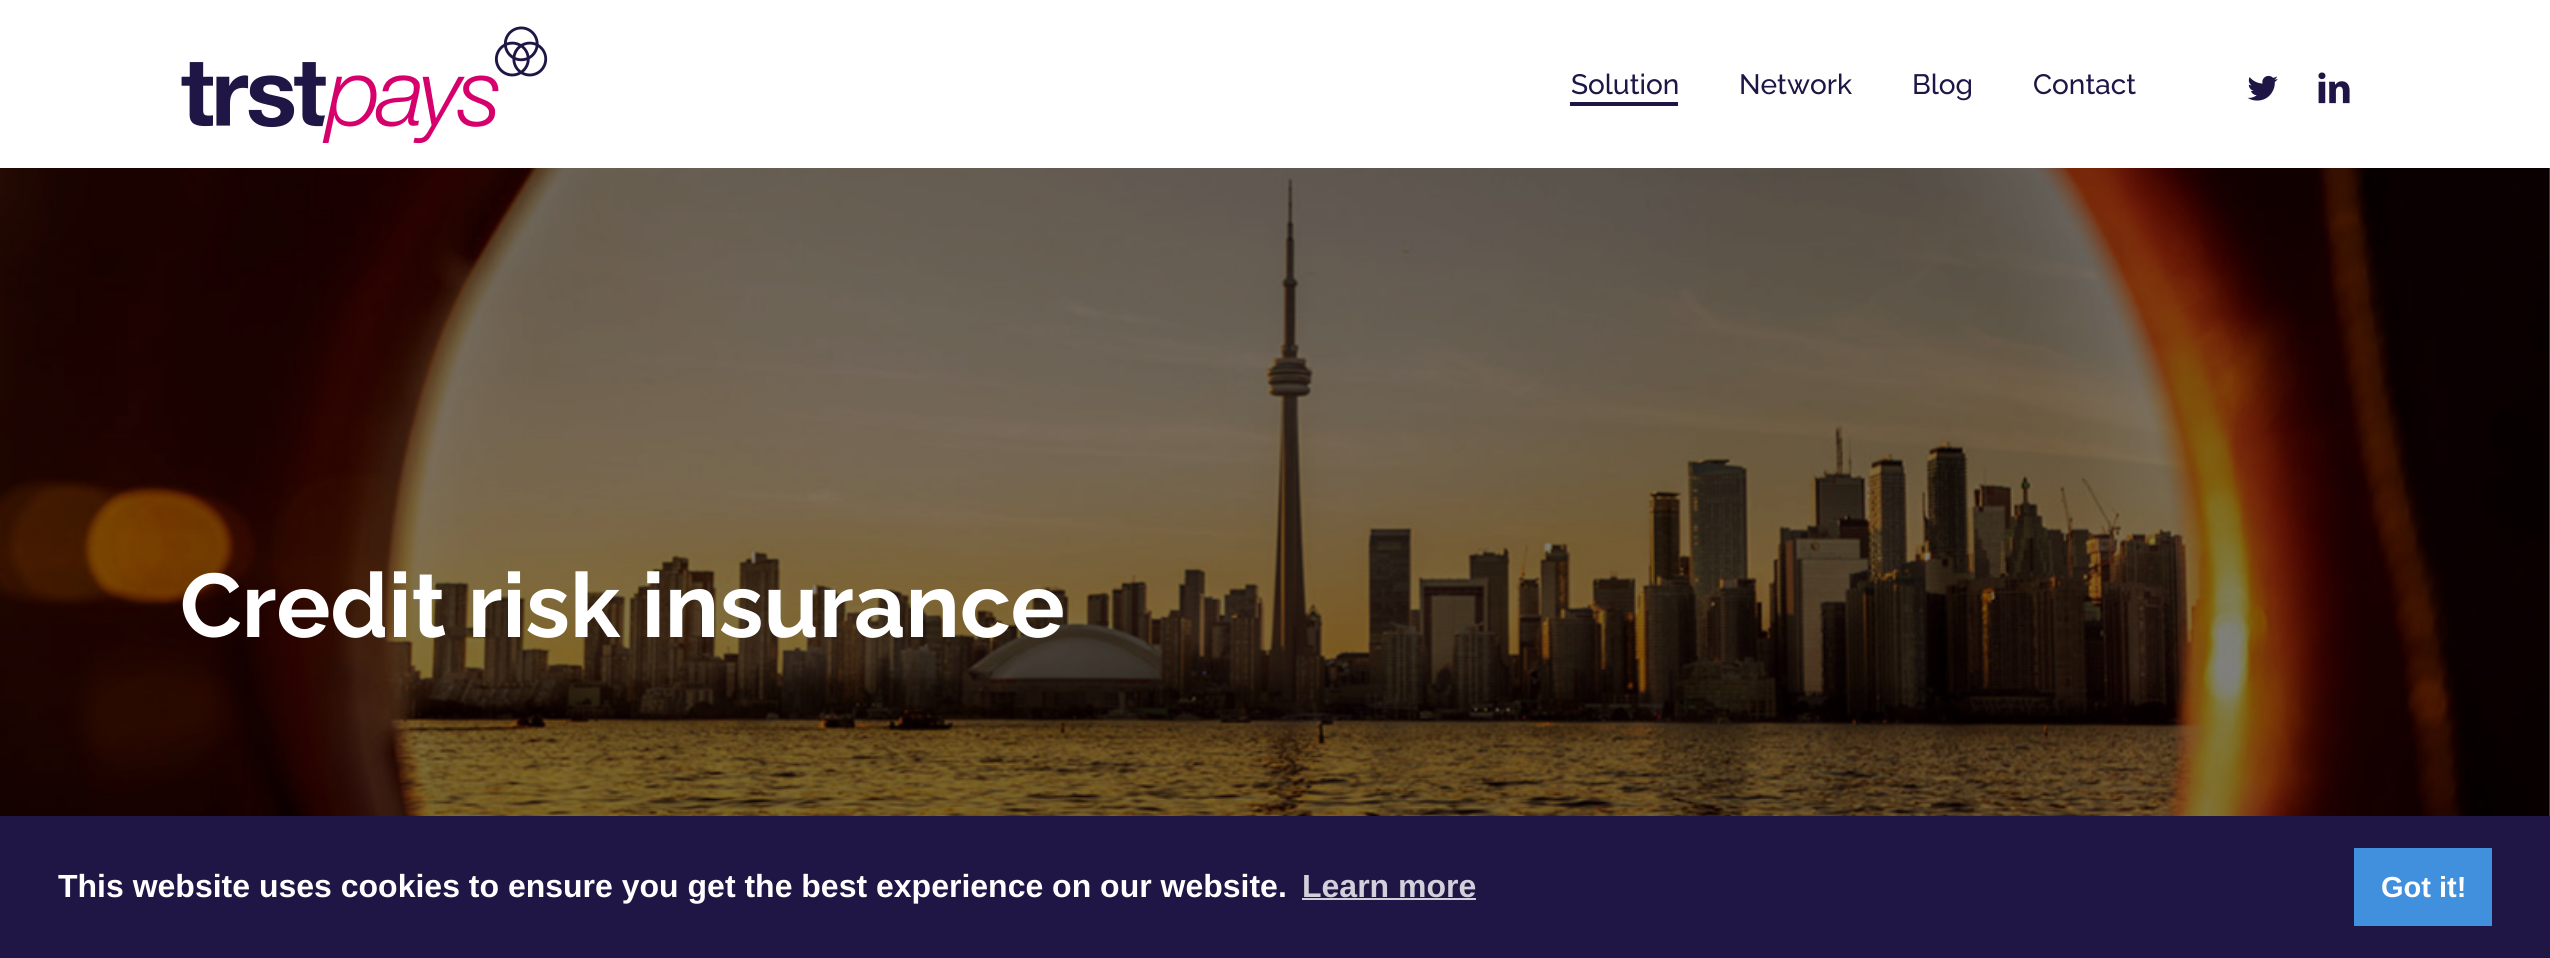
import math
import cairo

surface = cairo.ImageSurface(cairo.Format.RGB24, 2550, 958)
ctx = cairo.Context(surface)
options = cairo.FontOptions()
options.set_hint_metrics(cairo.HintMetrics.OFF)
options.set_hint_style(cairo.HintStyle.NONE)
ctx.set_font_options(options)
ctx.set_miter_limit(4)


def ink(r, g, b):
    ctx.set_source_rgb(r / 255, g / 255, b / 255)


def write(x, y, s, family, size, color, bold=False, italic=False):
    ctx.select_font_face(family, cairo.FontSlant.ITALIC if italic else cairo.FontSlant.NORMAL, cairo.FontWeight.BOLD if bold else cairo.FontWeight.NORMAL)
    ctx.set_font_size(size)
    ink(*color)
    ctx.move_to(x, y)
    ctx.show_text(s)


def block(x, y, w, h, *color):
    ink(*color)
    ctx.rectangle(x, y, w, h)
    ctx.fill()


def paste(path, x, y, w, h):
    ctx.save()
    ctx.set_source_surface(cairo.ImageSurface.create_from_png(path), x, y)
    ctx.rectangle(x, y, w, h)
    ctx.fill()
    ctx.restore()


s1 = dict(family="Raleway Medium", size=28, color=(31, 22, 70))
s2 = dict(family="Raleway", size=90, color=(255, 255, 255), bold=True)
s3 = dict(family="Liberation Sans", size=32, color=(255, 255, 255), bold=True)
s4 = dict(family="Liberation Sans", size=32, color=(210, 208, 218), bold=True)
s5 = dict(family="Liberation Sans", size=29, color=(255, 255, 255), bold=True)

ink(255, 255, 255)
ctx.paint()
paste("pic1.png", 181, 26, 367, 118)
write(1571, 94, "Solution", **s1)
block(1570, 102, 108, 4, 31, 22, 70)
write(1739, 94, "Network", **s1)
write(1912, 94, "Blog", **s1)
write(2033, 94, "Contact", **s1)
paste("pic2.png", 2247, 75, 31, 26)
paste("pic3.png", 2318, 72, 32, 32)
paste("pic4.png", 0, 168, 2550, 648)
write(180, 637, "Credit risk insurance", **s2)
block(0, 816, 2550, 142, 31, 22, 70)
write(58, 897, "This website uses cookies to ensure you get the best experience on our website.", **s3)
write(1302, 897, "Learn more", **s4)
block(1302, 898, 174, 2, 210, 208, 218)
block(2354, 848, 138, 78, 65, 144, 222)
write(2381, 897, "Got it!", **s5)
surface.write_to_png("screenshot.png")
